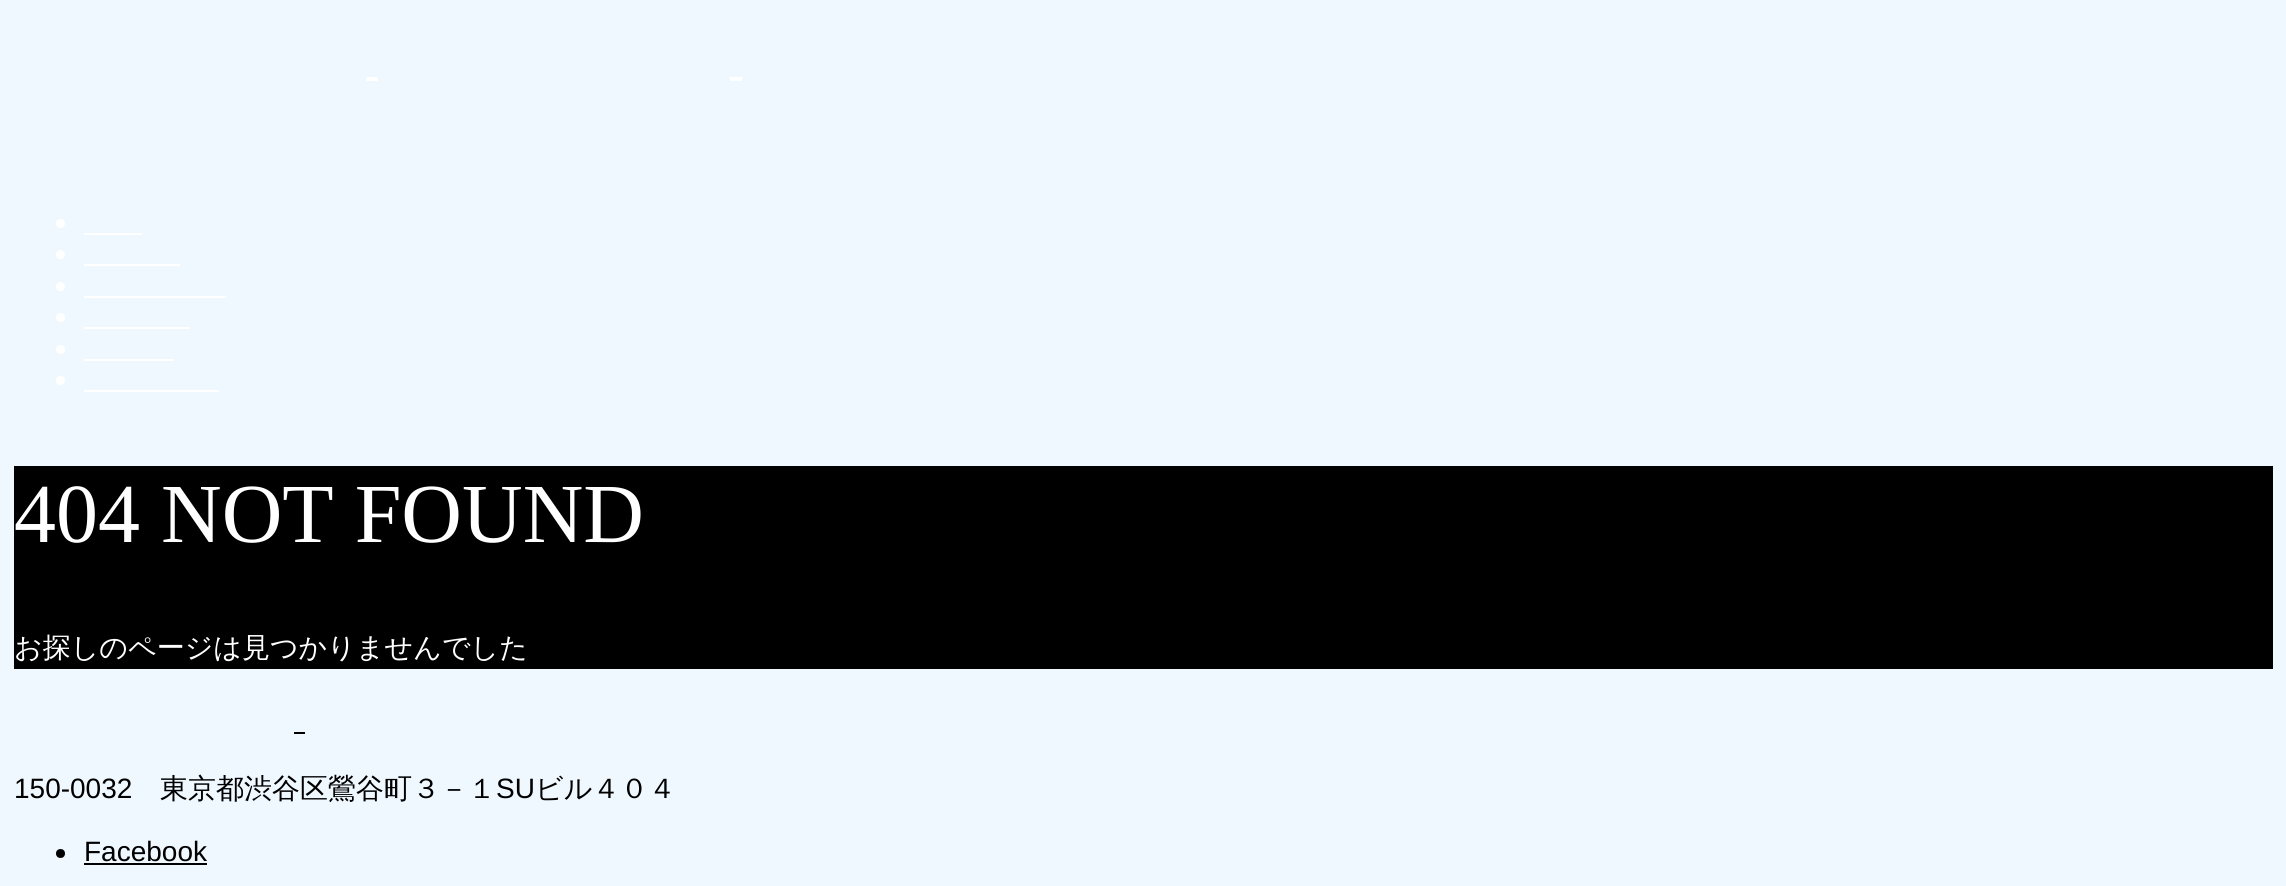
import math
import cairo

surface = cairo.ImageSurface(cairo.Format.RGB24, 2286, 886)
ctx = cairo.Context(surface)
options = cairo.FontOptions()
options.set_hint_metrics(cairo.HintMetrics.OFF)
options.set_hint_style(cairo.HintStyle.NONE)
ctx.set_font_options(options)
ctx.set_miter_limit(4)


def ink(r, g, b):
    ctx.set_source_rgb(r / 255, g / 255, b / 255)


def write(x, y, s, family, size, color, bold=False, italic=False):
    ctx.select_font_face(family, cairo.FontSlant.ITALIC if italic else cairo.FontSlant.NORMAL, cairo.FontWeight.BOLD if bold else cairo.FontWeight.NORMAL)
    ctx.set_font_size(size)
    ink(*color)
    ctx.move_to(x, y)
    ctx.show_text(s)


def block(x, y, w, h, *color):
    ink(*color)
    ctx.rectangle(x, y, w, h)
    ctx.fill()


s1 = dict(family="Liberation Serif", size=84, color=(255, 255, 255))
s2 = dict(family="WenQuanYi Zen Hei Medium", size=28, color=(255, 255, 255))
s3 = dict(family="Liberation Sans", size=28, color=(0, 0, 0))
s4 = dict(family="WenQuanYi Zen Hei Medium", size=28, color=(0, 0, 0))

ink(240, 248, 255)
ctx.paint()
block(366, 77, 12, 4, 255, 255, 255)
block(730, 77, 12, 4, 255, 255, 255)
ctx.arc(60.5, 223.5, 4.5, 0, 2 * math.pi)
ctx.fill()
block(84, 233, 58, 2, 255, 255, 255)
ctx.arc(60.5, 254.5, 4.5, 0, 2 * math.pi)
ctx.fill()
block(84, 264, 96, 2, 255, 255, 255)
ctx.arc(60.5, 286.5, 4.5, 0, 2 * math.pi)
ctx.fill()
block(84, 296, 142, 2, 255, 255, 255)
ctx.arc(60.5, 317.5, 4.5, 0, 2 * math.pi)
ctx.fill()
block(84, 327, 105, 2, 255, 255, 255)
ctx.arc(60.5, 349.5, 4.5, 0, 2 * math.pi)
ctx.fill()
block(84, 359, 89, 2, 255, 255, 255)
ctx.arc(60.5, 380.5, 4.5, 0, 2 * math.pi)
ctx.fill()
block(84, 390, 135, 2, 255, 255, 255)
block(14, 466, 2259, 203, 0, 0, 0)
write(14, 542, "404 NOT FOUND", **s1)
write(14, 657, "お探しのページは見つかりませんでした", **s2)
block(294, 732, 11, 2, 0, 0, 0)
write(14, 798, "150-0032", **s3)
write(160, 798, "東京都渋谷区鶯谷町３－１", **s4)
write(496, 798, "SU", **s3)
write(535, 798, "ビル４０４", **s4)
ctx.new_path()
ctx.arc(60.5, 853.5, 4.5, 0, 2 * math.pi)
ctx.fill()
write(84, 861, "Facebook", **s3)
block(84, 863, 123, 2, 0, 0, 0)
surface.write_to_png("screenshot.png")
